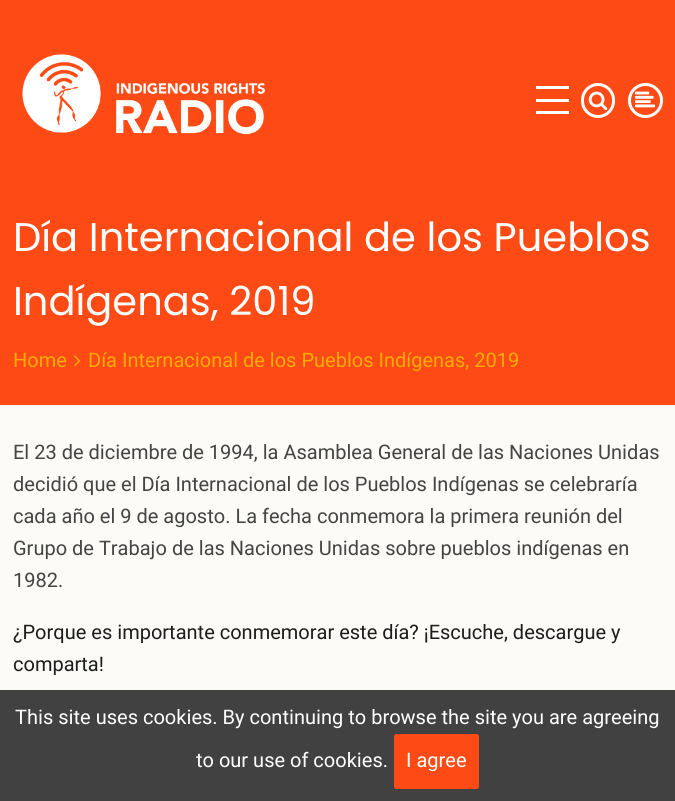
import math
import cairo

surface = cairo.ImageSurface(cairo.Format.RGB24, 675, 801)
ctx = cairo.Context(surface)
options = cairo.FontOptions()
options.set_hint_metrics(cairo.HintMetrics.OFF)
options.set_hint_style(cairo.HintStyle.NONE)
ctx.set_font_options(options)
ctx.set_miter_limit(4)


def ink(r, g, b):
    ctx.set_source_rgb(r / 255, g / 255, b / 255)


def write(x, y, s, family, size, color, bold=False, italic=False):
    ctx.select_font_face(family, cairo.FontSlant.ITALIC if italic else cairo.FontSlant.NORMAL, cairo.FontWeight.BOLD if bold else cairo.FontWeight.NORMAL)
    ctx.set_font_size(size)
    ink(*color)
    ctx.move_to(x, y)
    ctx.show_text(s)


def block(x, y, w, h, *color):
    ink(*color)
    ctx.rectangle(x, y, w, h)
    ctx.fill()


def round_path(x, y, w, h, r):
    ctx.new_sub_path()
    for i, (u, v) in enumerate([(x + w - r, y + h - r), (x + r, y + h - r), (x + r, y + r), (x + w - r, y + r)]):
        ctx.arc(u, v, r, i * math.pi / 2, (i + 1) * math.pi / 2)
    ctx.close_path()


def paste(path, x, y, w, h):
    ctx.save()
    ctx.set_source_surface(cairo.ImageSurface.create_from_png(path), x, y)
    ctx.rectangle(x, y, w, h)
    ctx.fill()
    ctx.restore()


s1 = dict(family="Poppins", size=40, color=(255, 255, 255))
s2 = dict(family="Heebo", size=20, color=(255, 170, 5))
s3 = dict(family="Heebo", size=20, color=(68, 68, 68))
s4 = dict(family="Heebo", size=20, color=(29, 29, 29))
s5 = dict(family="Heebo", size=20, color=(255, 255, 255))

ink(252, 251, 248)
ctx.paint()
block(0, 0, 675, 405, 254, 74, 21)
paste("pic1.png", 22, 54, 243, 81)
block(536, 86, 33, 3, 255, 255, 255)
block(536, 111, 33, 3, 255, 255, 255)
block(536, 99, 33, 3, 255, 255, 255)
round_path(582.5, 84.5, 31, 32, 15.5)
ctx.set_line_width(3)
ctx.stroke()
paste("pic2.png", 588, 91, 20, 20)
ctx.arc(645.5, 100.5, 16, 0, 2 * math.pi)
ctx.stroke()
paste("pic3.png", 635, 91, 20, 17)
write(13, 251, "Día Internacional de los Pueblos", **s1)
write(13, 315, "Indígenas, 2019", **s1)
write(13, 367, "Home", **s2)
paste("pic4.png", 74, 355, 7, 12)
write(88, 367, "Día Internacional de los Pueblos Indígenas, 2019", **s2)
write(13, 459, "El 23 de diciembre de 1994, la Asamblea General de las Naciones Unidas", **s3)
write(13, 491, "decidió que el Día Internacional de los Pueblos Indígenas se celebraría", **s3)
write(13, 523, "cada año el 9 de agosto. La fecha conmemora la primera reunión del", **s3)
write(13, 555, "Grupo de Trabajo de las Naciones Unidas sobre pueblos indígenas en", **s3)
write(13, 587, "1982.", **s3)
write(13, 639, "¿Porque es importante conmemorar este día? ¡Escuche, descargue y", **s4)
write(13, 671, "comparta!", **s4)
block(0, 690, 675, 111, 65, 65, 65)
write(15, 724, "This site uses cookies. By continuing to browse the site you are agreeing", **s5)
write(196, 767, "to our use of cookies.", **s5)
ink(254, 74, 21)
round_path(394, 734, 85, 55, 2.5)
ctx.fill()
write(406, 767, "I agree", **s5)
surface.write_to_png("screenshot.png")
